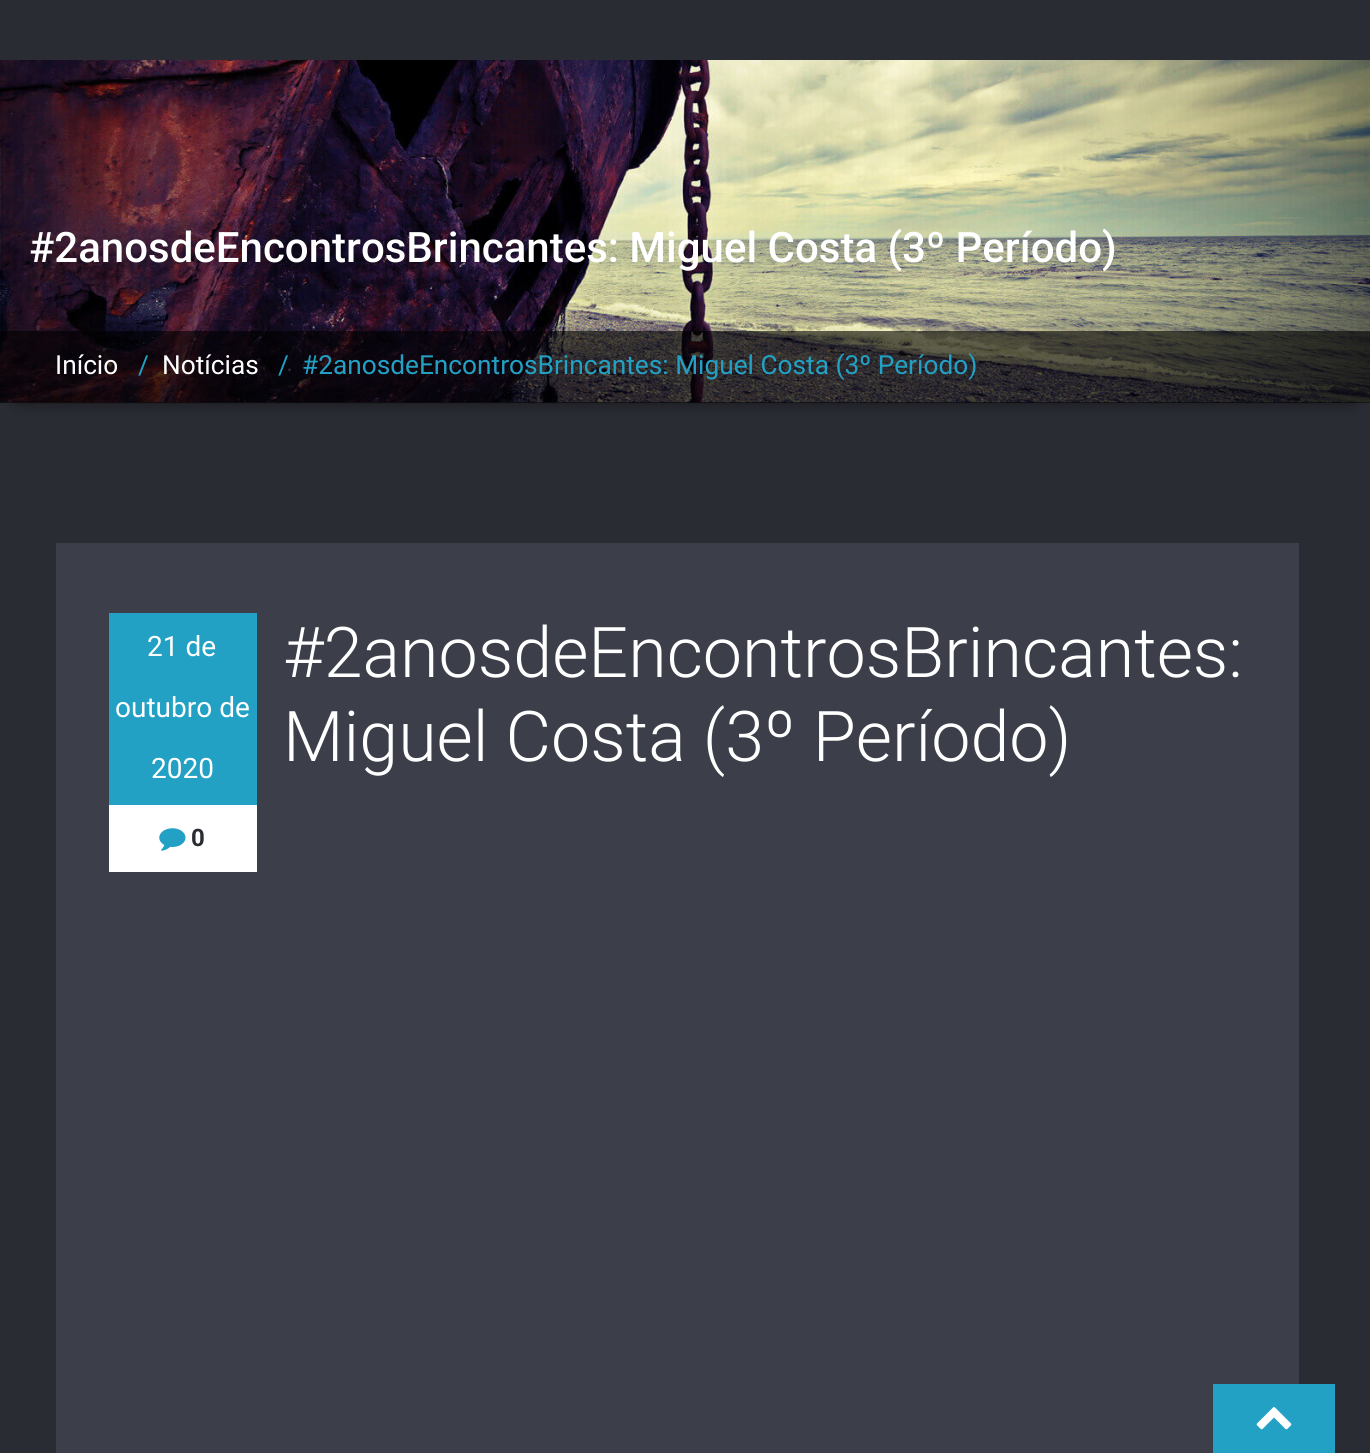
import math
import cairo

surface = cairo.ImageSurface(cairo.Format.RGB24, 1370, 1453)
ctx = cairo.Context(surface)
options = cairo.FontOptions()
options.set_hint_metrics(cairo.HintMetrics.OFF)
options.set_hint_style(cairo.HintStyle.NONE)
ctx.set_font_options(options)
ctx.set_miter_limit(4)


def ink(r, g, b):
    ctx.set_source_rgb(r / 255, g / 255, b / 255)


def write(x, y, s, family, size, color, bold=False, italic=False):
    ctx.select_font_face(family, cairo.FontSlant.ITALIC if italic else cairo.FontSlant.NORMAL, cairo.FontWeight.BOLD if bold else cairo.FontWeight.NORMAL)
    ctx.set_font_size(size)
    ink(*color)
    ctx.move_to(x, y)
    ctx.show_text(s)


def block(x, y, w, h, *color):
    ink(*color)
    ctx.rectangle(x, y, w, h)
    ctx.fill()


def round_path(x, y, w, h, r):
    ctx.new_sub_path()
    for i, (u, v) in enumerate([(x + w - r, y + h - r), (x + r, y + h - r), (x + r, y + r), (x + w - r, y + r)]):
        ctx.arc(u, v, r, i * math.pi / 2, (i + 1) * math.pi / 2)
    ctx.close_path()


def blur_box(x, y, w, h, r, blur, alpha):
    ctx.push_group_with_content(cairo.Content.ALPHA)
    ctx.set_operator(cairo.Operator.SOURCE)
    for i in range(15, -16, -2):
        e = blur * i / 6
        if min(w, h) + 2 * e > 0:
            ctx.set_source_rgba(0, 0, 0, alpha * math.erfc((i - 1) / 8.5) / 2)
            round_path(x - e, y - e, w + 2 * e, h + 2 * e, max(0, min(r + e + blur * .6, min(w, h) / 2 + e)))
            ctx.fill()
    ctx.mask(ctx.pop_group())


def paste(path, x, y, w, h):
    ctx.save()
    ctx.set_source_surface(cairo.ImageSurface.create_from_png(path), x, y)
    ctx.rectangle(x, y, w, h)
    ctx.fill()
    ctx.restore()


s1 = dict(family="Roboto Medium", size=42, color=(255, 255, 255))
s2 = dict(family="Roboto", size=26.25, color=(255, 255, 255))
s3 = dict(family="Roboto", size=26.25, color=(34, 161, 196))
s4 = dict(family="Roboto", size=28, color=(255, 255, 255))
s5 = dict(family="Roboto", size=24, color=(42, 44, 51), bold=True)
s6 = dict(family="Roboto Light", size=70, color=(255, 255, 255))

ink(42, 44, 51)
ctx.paint()
ink(0, 0, 0)
blur_box(18, 89, 1335, 308, 0, 9, 1)
paste("pic1.png", 0, 60, 1370, 343)
write(29, 262, "#2anosdeEncontrosBrincantes: Miguel Costa (3º Período)", **s1)
ctx.set_source_rgba(0, 0, 0, 0.6)
ctx.rectangle(0, 331, 1370, 72)
ctx.fill()
write(55, 374, "Início", **s2)
write(138, 374, "/", **s3)
write(162, 374, "Notícias", **s2)
write(278, 374, "/", **s3)
write(302, 374, "#2anosdeEncontrosBrincantes: Miguel Costa (3º Período)", **s3)
block(56, 543, 1243, 910, 60, 63, 73)
block(109, 805, 148, 67, 255, 255, 255)
block(109, 613, 148, 192, 34, 161, 196)
write(147, 656, "21 de", **s4)
write(115, 717, "outubro de", **s4)
write(151, 778, "2020", **s4)
paste("pic2.png", 159, 828, 27, 23)
write(191, 846, "0", **s5)
write(283, 677, "#2anosdeEncontrosBrincantes:", **s6)
write(283, 761, "Miguel Costa (3º Período)", **s6)
block(1213, 1384, 122, 69, 34, 161, 196)
paste("pic3.png", 1256, 1407, 36, 23)
surface.write_to_png("screenshot.png")
